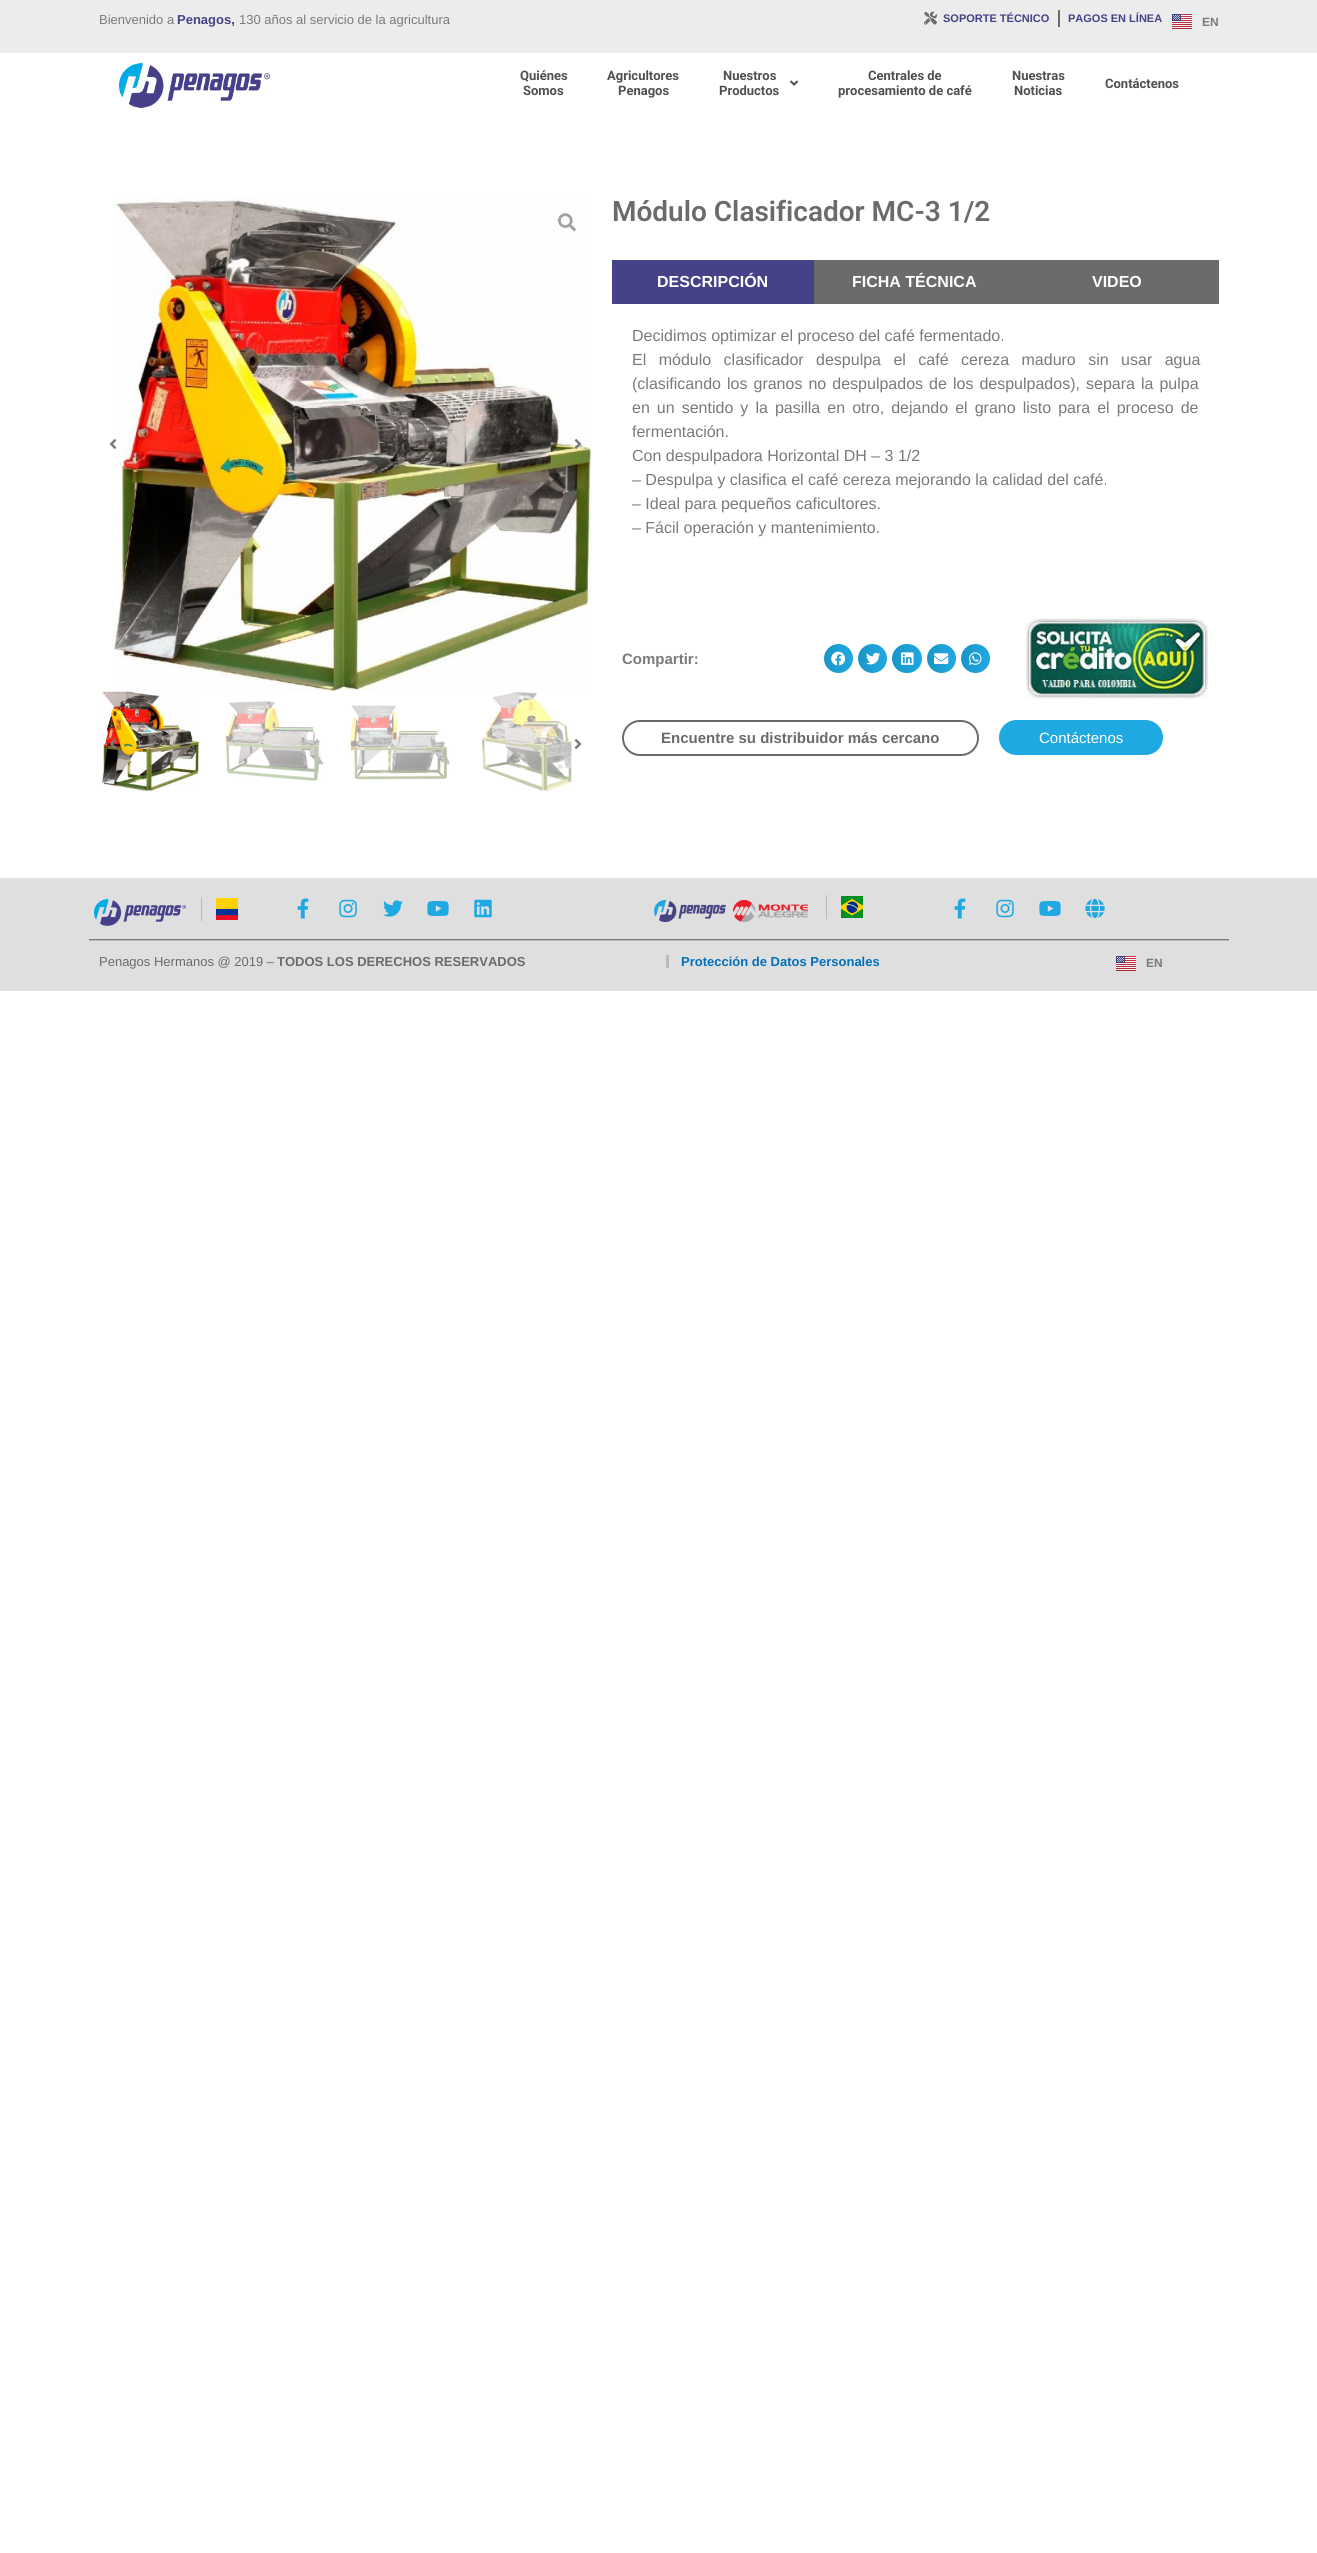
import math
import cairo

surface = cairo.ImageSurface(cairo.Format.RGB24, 1317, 2553)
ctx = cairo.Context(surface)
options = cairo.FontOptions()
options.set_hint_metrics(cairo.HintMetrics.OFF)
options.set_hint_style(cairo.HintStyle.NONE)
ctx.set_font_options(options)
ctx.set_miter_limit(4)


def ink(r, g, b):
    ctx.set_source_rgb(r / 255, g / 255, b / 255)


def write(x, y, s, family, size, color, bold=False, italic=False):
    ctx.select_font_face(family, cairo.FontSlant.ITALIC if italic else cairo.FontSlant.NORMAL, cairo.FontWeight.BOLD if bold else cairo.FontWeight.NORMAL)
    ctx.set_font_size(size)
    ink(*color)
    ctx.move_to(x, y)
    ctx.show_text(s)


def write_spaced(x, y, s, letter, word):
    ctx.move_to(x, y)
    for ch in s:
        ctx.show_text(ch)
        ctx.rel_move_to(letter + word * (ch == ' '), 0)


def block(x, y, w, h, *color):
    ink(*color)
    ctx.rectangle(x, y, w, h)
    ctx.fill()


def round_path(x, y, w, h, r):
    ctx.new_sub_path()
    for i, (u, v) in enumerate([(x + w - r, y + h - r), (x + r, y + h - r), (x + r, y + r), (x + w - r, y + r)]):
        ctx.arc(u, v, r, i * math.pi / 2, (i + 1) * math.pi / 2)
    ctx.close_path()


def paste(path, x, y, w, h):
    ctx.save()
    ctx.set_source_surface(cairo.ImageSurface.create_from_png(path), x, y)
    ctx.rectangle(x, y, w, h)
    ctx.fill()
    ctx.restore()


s1 = dict(family="Liberation Sans", size=13, color=(122, 122, 122))
s2 = dict(family="Liberation Sans", size=13, color=(70, 66, 135), bold=True)
s3 = dict(family="Liberation Sans", size=11, color=(70, 66, 135), bold=True)
s4 = dict(family="Liberation Sans", size=12, color=(122, 122, 122), bold=True)
s5 = dict(family="Roboto", size=13, color=(79, 79, 79), bold=True)
s6 = dict(family="Roboto SemiBold", size=28, color=(107, 107, 107))
s7 = dict(family="Liberation Sans", size=16, color=(255, 255, 255), bold=True)
s8 = dict(family="Liberation Sans", size=16, color=(122, 122, 122))
s9 = dict(family="Liberation Sans", size=15, color=(122, 122, 122), bold=True)
s10 = dict(family="Liberation Sans", size=15, color=(107, 107, 107), bold=True)
s11 = dict(family="Liberation Sans", size=15, color=(255, 255, 255))
s12 = dict(family="Liberation Sans", size=13, color=(107, 107, 107))
s13 = dict(family="Liberation Sans", size=13, color=(107, 107, 107), bold=True)
s14 = dict(family="Liberation Sans", size=13, color=(1, 112, 185), bold=True)

ink(255, 255, 255)
ctx.paint()
block(0, 0, 1317, 53, 236, 236, 236)
write(99, 24, "Bienvenido a", **s1)
write(177, 24, "Penagos,", **s2)
write(239, 24, "130 años al servicio de la agricultura", **s1)
block(1058, 10, 2, 17, 107, 107, 107)
paste("pic1.png", 924, 11, 13, 14)
write(943, 22, "SOPORTE TÉCNICO", **s3)
write(1068, 22, "PAGOS EN LÍNEA", **s3)
paste("pic2.png", 1172, 14, 20, 15)
write(1202, 26, "EN", **s4)
paste("pic3.png", 119, 63, 151, 45)
write(520, 80, "Quiénes", **s5)
write(523, 95, "Somos", **s5)
write(607, 80, "Agricultores", **s5)
write(618, 95, "Penagos", **s5)
write(723, 80, "Nuestros", **s5)
write(719, 95, "Productos", **s5)
paste("pic4.png", 790, 80, 9, 6)
write(868, 80, "Centrales de", **s5)
write(838, 95, "procesamiento de café", **s5)
write(1012, 80, "Nuestras", **s5)
write(1014, 95, "Noticias", **s5)
write(1105, 88, "Contáctenos", **s5)
paste("pic5.png", 112, 198, 480, 493)
paste("pic6.png", 558, 213, 18, 19)
paste("pic7.png", 109, 439, 8, 10)
paste("pic8.png", 574, 439, 8, 10)
paste("pic9.png", 102, 691, 97, 100)
paste("pic10.png", 225, 701, 99, 80)
paste("pic11.png", 350, 705, 100, 75)
paste("pic12.png", 482, 691, 90, 100)
paste("pic13.png", 109, 739, 8, 10)
paste("pic14.png", 574, 739, 8, 10)
write(612, 221, "Módulo Clasificador MC-3 1/2", **s6)
block(814, 260, 405, 44, 107, 107, 107)
block(612, 260, 202, 44, 70, 66, 135)
write(657, 287, "DESCRIPCIÓN", **s7)
write(852, 287, "FICHA TÉCNICA", **s7)
write(1092, 287, "VIDEO", **s7)
write(632, 341, "Decidimos optimizar el proceso del café fermentado.", **s8)
write_spaced(632, 365, "El módulo clasificador despulpa el café cereza maduro sin usar agua", 0, 8)
write_spaced(632, 389, "(clasificando los granos no despulpados de los despulpados), separa la pulpa", 0, 1.6)
write_spaced(632, 413, "en un sentido y la pasilla en otro, dejando el grano listo para el proceso de", 0, 2.6)
write(632, 437, "fermentación.", **s8)
write(632, 461, "Con despulpadora Horizontal DH – 3 1/2", **s8)
write(632, 485, "– Despulpa y clasifica el café cereza mejorando la calidad del café.", **s8)
write(632, 509, "– Ideal para pequeños caficultores.", **s8)
write(632, 533, "– Fácil operación y mantenimiento.", **s8)
write(622, 664, "Compartir:", **s9)
ink(31, 169, 226)
ctx.new_path()
ctx.arc(838.5, 658.5, 14.5, 0, 2 * math.pi)
ctx.fill()
gradient = cairo.LinearGradient(824, 659, 853, 659)
gradient.add_color_stop_rgba(0, 0, 0, 0, 0.12)
gradient.add_color_stop_rgba(1, 0, 0, 0, 0)
ctx.set_source(gradient)
ctx.arc(838.5, 658.5, 14.5, 0, 2 * math.pi)
ctx.fill()
paste("pic15.png", 831, 651, 15, 15)
ink(31, 169, 226)
ctx.arc(872.5, 658.5, 14.5, 0, 2 * math.pi)
ctx.fill()
gradient = cairo.LinearGradient(858, 659, 887, 659)
gradient.add_color_stop_rgba(0, 0, 0, 0, 0.12)
gradient.add_color_stop_rgba(1, 0, 0, 0, 0)
ctx.set_source(gradient)
ctx.arc(872.5, 658.5, 14.5, 0, 2 * math.pi)
ctx.fill()
paste("pic16.png", 866, 652, 15, 13)
ink(31, 169, 226)
round_path(892, 644, 30, 29, 14.5)
ctx.fill()
gradient = cairo.LinearGradient(892, 659, 922, 659)
gradient.add_color_stop_rgba(0, 0, 0, 0, 0.12)
gradient.add_color_stop_rgba(1, 0, 0, 0, 0)
ctx.set_source(gradient)
round_path(892, 644, 30, 29, 14.5)
ctx.fill()
paste("pic17.png", 901, 652, 13, 13)
ink(31, 169, 226)
ctx.arc(941.5, 658.5, 14.5, 0, 2 * math.pi)
ctx.fill()
gradient = cairo.LinearGradient(927, 659, 956, 659)
gradient.add_color_stop_rgba(0, 0, 0, 0, 0.12)
gradient.add_color_stop_rgba(1, 0, 0, 0, 0)
ctx.set_source(gradient)
ctx.arc(941.5, 658.5, 14.5, 0, 2 * math.pi)
ctx.fill()
paste("pic18.png", 934, 653, 15, 11)
ink(31, 169, 226)
ctx.arc(975.5, 658.5, 14.5, 0, 2 * math.pi)
ctx.fill()
gradient = cairo.LinearGradient(961, 659, 990, 659)
gradient.add_color_stop_rgba(0, 0, 0, 0, 0.12)
gradient.add_color_stop_rgba(1, 0, 0, 0, 0)
ctx.set_source(gradient)
ctx.arc(975.5, 658.5, 14.5, 0, 2 * math.pi)
ctx.fill()
paste("pic19.png", 969, 652, 13, 13)
paste("pic20.png", 1026, 618, 182, 82)
round_path(623, 721, 355, 34, 17)
ink(107, 107, 107)
ctx.stroke()
write(661, 743, "Encuentre su distribuidor más cercano", **s10)
ink(31, 169, 226)
round_path(999, 720, 164, 35, 17.5)
ctx.fill()
write(1039, 743, "Contáctenos", **s11)
block(0, 878, 1317, 113, 223, 223, 223)
paste("pic21.png", 94, 899, 92, 27)
block(201, 897, 1, 24, 186, 186, 186)
paste("pic22.png", 216, 898, 22, 22)
paste("pic23.png", 297, 898, 12, 21)
paste("pic24.png", 339, 899, 18, 19)
paste("pic25.png", 383, 900, 20, 17)
paste("pic26.png", 427, 901, 22, 15)
paste("pic27.png", 474, 899, 18, 19)
paste("pic28.png", 654, 900, 154, 22)
block(826, 895, 1, 24, 186, 186, 186)
paste("pic29.png", 841, 896, 22, 22)
paste("pic23.png", 954, 898, 12, 21)
paste("pic24.png", 996, 899, 18, 19)
paste("pic26.png", 1039, 901, 22, 15)
paste("pic30.png", 1085, 898, 20, 21)
block(89, 939, 1140, 1, 123, 123, 123)
block(89, 940, 1140, 1, 186, 186, 186)
write(99, 966, "Penagos Hermanos @ 2019 –", **s12)
write(277, 966, "TODOS LOS DERECHOS RESERVADOS", **s13)
block(666, 955, 3, 13, 186, 186, 186)
write(681, 966, "Protección de Datos Personales", **s14)
paste("pic2.png", 1116, 956, 20, 15)
write(1146, 967, "EN", **s4)
surface.write_to_png("screenshot.png")
